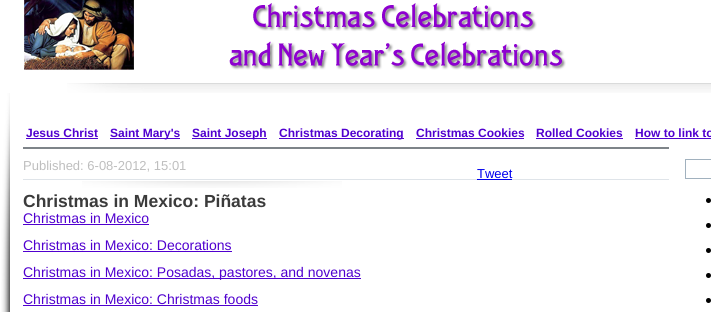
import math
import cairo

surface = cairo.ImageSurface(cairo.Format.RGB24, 711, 312)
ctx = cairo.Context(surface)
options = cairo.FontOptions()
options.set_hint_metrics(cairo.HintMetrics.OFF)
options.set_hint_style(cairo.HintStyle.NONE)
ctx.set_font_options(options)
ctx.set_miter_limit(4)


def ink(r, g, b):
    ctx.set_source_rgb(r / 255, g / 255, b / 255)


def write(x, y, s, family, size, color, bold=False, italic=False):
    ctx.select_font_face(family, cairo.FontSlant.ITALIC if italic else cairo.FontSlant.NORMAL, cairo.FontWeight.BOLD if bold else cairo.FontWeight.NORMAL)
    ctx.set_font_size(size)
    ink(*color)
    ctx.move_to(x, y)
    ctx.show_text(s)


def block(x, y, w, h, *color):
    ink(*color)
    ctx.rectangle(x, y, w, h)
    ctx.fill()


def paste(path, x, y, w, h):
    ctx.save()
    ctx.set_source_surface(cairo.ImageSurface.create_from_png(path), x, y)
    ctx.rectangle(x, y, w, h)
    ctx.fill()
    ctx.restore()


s1 = dict(family="Liberation Sans", size=12, color=(80, 0, 207), bold=True)
s2 = dict(family="Liberation Sans", size=13, color=(190, 190, 190))
s3 = dict(family="Liberation Sans", size=13, color=(0, 0, 238))
s4 = dict(family="Liberation Sans", size=17.5, color=(59, 59, 59), bold=True)
s5 = dict(family="Liberation Sans", size=14, color=(80, 0, 207))

ink(255, 255, 255)
ctx.paint()
paste("pic1.png", 24, 0, 542, 70)
paste("pic2.png", 1, 93, 9, 219)
write(26, 137, "Jesus Christ", **s1)
block(26, 138, 72, 1, 80, 0, 207)
block(110, 138, 70, 1, 80, 0, 207)
write(110, 137, "Saint Mary's", **s1)
block(192, 138, 75, 1, 80, 0, 207)
write(192, 137, "Saint Joseph", **s1)
block(279, 138, 125, 1, 80, 0, 207)
write(279, 137, "Christmas Decorating", **s1)
write(416, 137, "Christmas Cookies", **s1)
block(416, 138, 108, 1, 80, 0, 207)
write(536, 137, "Rolled Cookies", **s1)
block(536, 138, 87, 1, 80, 0, 207)
write(635, 137, "How to link to", **s1)
block(635, 138, 76, 1, 80, 0, 207)
paste("pic3.png", 67, 83, 644, 10)
block(23, 147, 646, 2, 126, 132, 137)
write(23, 170, "Published: 6-08-2012, 15:01", **s2)
write(477, 178, "Tweet", **s3)
block(23, 179, 646, 1, 223, 228, 233)
block(477, 179, 35, 1, 0, 0, 238)
paste("pic4.png", 82, 181, 260, 7)
write(23, 207, "Christmas in Mexico: Piñatas", **s4)
write(23, 223, "Christmas in Mexico", **s5)
block(23, 224, 126, 1, 80, 0, 207)
write(23, 250, "Christmas in Mexico: Decorations", **s5)
block(23, 251, 209, 1, 80, 0, 207)
block(23, 278, 338, 1, 80, 0, 207)
write(23, 277, "Christmas in Mexico: Posadas, pastores, and novenas", **s5)
write(23, 304, "Christmas in Mexico: Christmas foods", **s5)
block(23, 305, 235, 1, 80, 0, 207)
ctx.rectangle(685.5, 159.5, 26, 19)
ink(161, 177, 190)
ctx.set_line_width(1)
ctx.stroke()
ink(0, 0, 0)
ctx.arc(708.5, 200.5, 2.5, 0, 2 * math.pi)
ctx.fill()
ctx.arc(708.5, 225.5, 2.5, 0, 2 * math.pi)
ctx.fill()
ctx.arc(708.5, 250.5, 2.5, 0, 2 * math.pi)
ctx.fill()
ctx.arc(708.5, 275.5, 2.5, 0, 2 * math.pi)
ctx.fill()
ctx.arc(708.5, 300.5, 2.5, 0, 2 * math.pi)
ctx.fill()
surface.write_to_png("screenshot.png")
